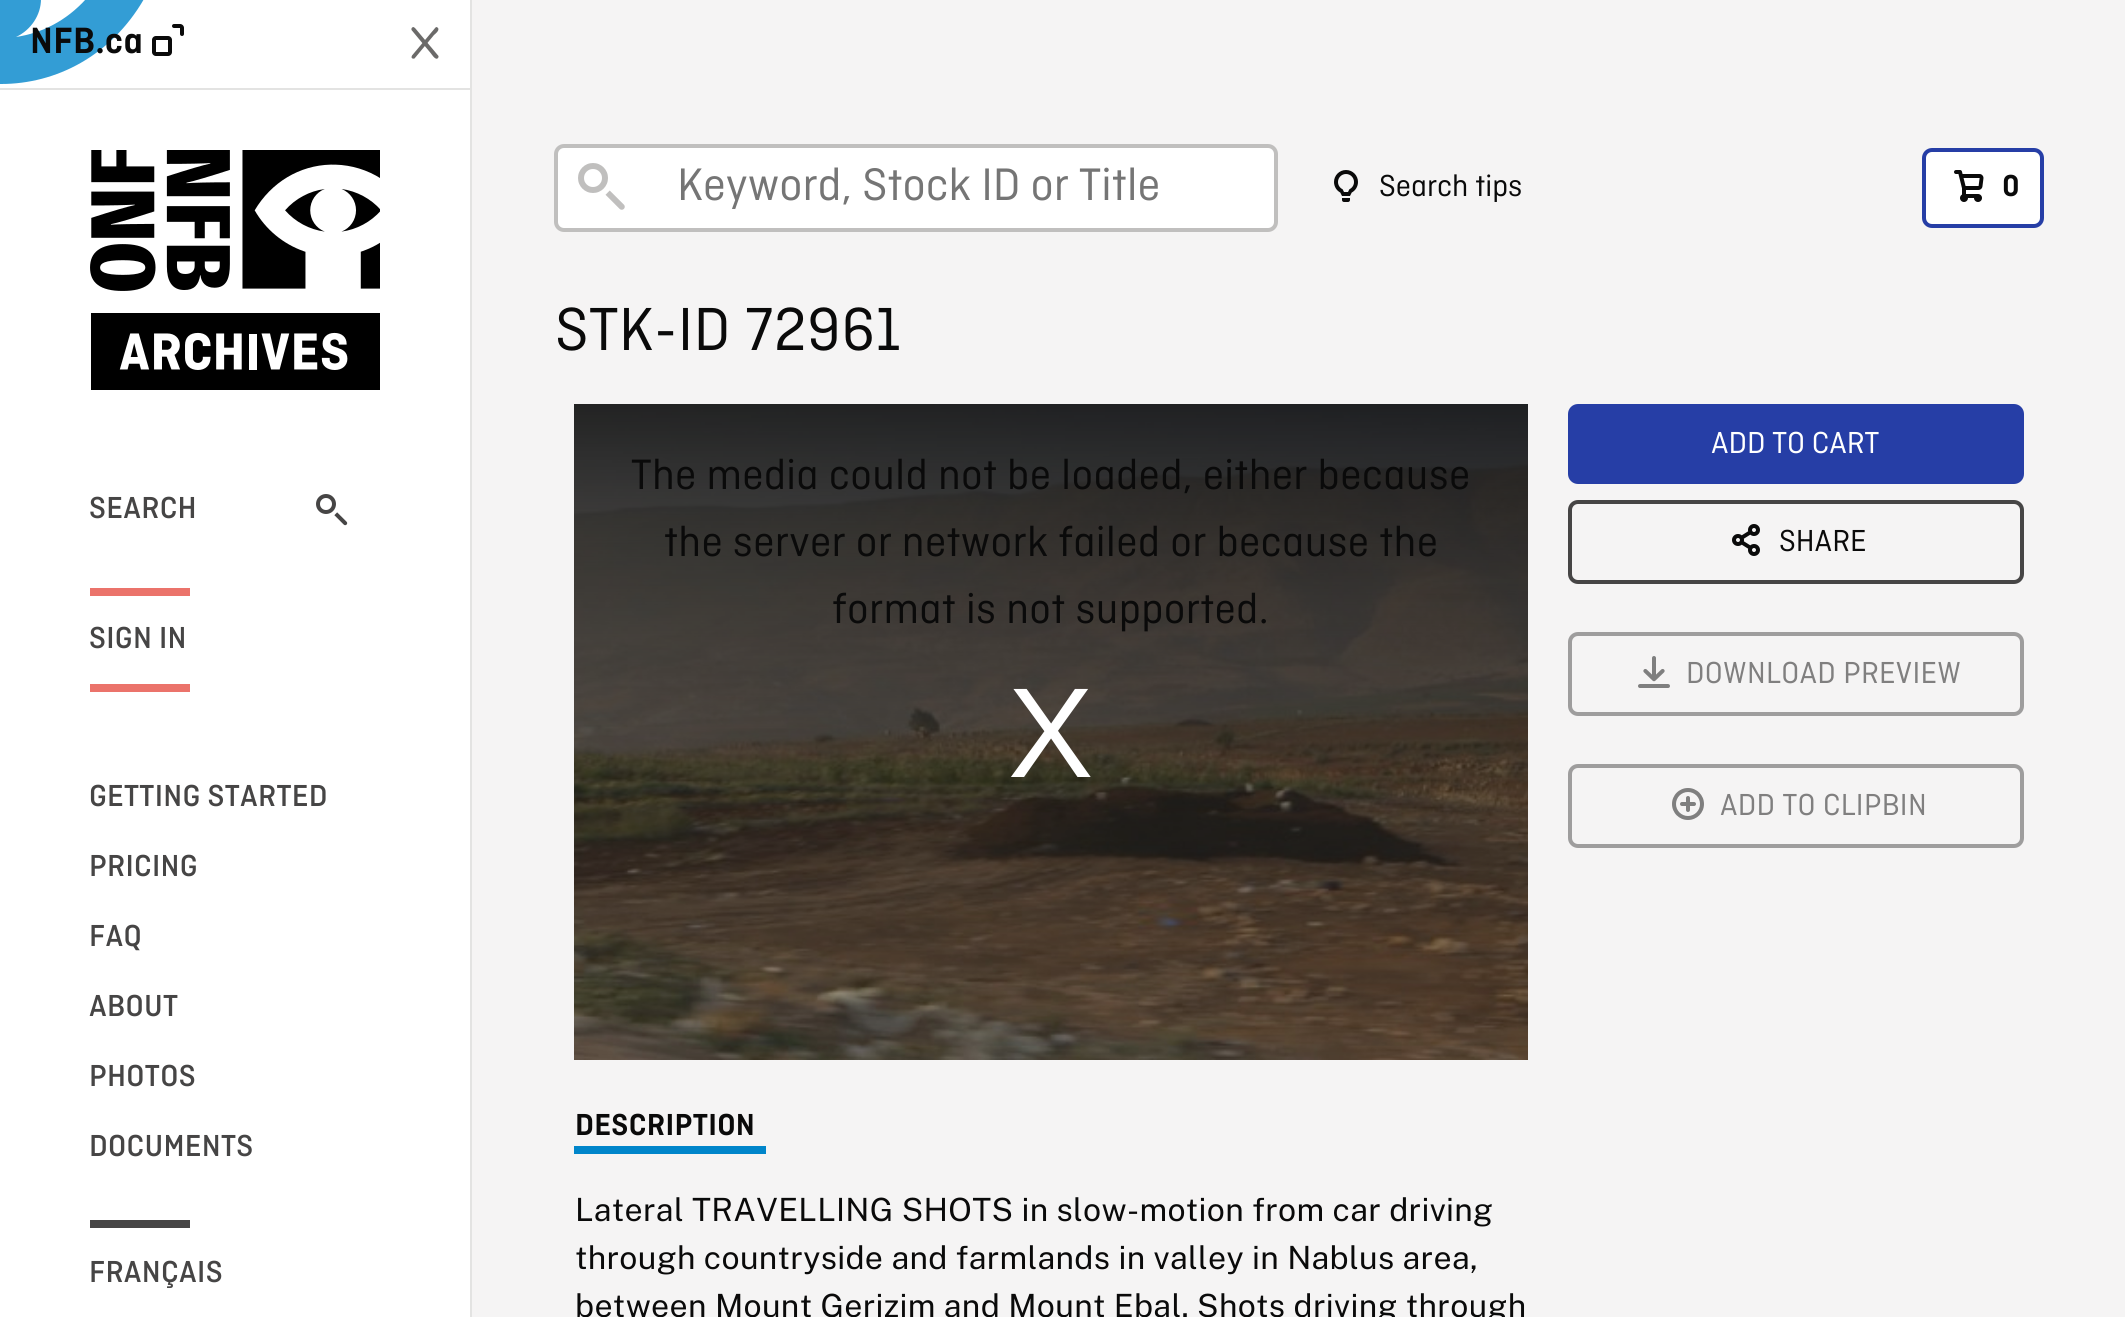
import math
import cairo

surface = cairo.ImageSurface(cairo.Format.RGB24, 2125, 1317)
ctx = cairo.Context(surface)
options = cairo.FontOptions()
options.set_hint_metrics(cairo.HintMetrics.OFF)
options.set_hint_style(cairo.HintStyle.NONE)
ctx.set_font_options(options)
ctx.set_miter_limit(4)


def ink(r, g, b):
    ctx.set_source_rgb(r / 255, g / 255, b / 255)


def write(x, y, s, family, size, color, bold=False, italic=False):
    ctx.select_font_face(family, cairo.FontSlant.ITALIC if italic else cairo.FontSlant.NORMAL, cairo.FontWeight.BOLD if bold else cairo.FontWeight.NORMAL)
    ctx.set_font_size(size)
    ink(*color)
    ctx.move_to(x, y)
    ctx.show_text(s)


def write_spaced(x, y, s, letter, word):
    ctx.move_to(x, y)
    for ch in s:
        ctx.show_text(ch)
        ctx.rel_move_to(letter + word * (ch == ' '), 0)


def block(x, y, w, h, *color):
    ink(*color)
    ctx.rectangle(x, y, w, h)
    ctx.fill()


def round_path(x, y, w, h, r):
    ctx.new_sub_path()
    for i, (u, v) in enumerate([(x + w - r, y + h - r), (x + r, y + h - r), (x + r, y + r), (x + w - r, y + r)]):
        ctx.arc(u, v, r, i * math.pi / 2, (i + 1) * math.pi / 2)
    ctx.close_path()


def paste(path, x, y, w, h):
    ctx.save()
    ctx.set_source_surface(cairo.ImageSurface.create_from_png(path), x, y)
    ctx.rectangle(x, y, w, h)
    ctx.fill()
    ctx.restore()


s1 = dict(family="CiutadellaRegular", size=48, color=(117, 117, 117))
s2 = dict(family="CiutadellaRegular", size=32, color=(10, 10, 10))
s3 = dict(family="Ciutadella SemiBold", size=32, color=(10, 10, 10))
s4 = dict(family="CiutadellaRegular", size=32, color=(255, 255, 255))

ink(245, 244, 244)
ctx.paint()
block(0, 0, 470, 1317, 255, 255, 255)
block(470, 0, 2, 1317, 227, 227, 226)
block(0, 88, 470, 2, 227, 227, 226)
ink(51, 157, 213)
ctx.new_path()
ctx.move_to(1, 84)
ctx.line_to(0, 84)
ctx.line_to(0, -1)
ctx.line_to(41, -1)
ctx.curve_to(41, 15, 31, 30, 16, 37)
ctx.curve_to(42, 33, 66, 21, 86, -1)
ctx.line_to(144, -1)
ctx.curve_to(111, 56, 56, 84, 1, 84)
ctx.fill()
ctx.select_font_face("Ciutadella SemiBold")
ctx.set_font_size(38.5)
ink(10, 10, 10)
write_spaced(30, 53, "NFB.ca", 0.32, 0)
paste("pic1.png", 152, 24, 32, 32)
ink(107, 106, 105)
ctx.new_path()
ctx.move_to(412, 55.5)
ctx.line_to(435.5, 27.5)
ctx.line_to(436.5, 27)
ctx.curve_to(437, 27, 437.5, 27.5, 438, 28)
ctx.curve_to(440, 30.5, 434.5, 34.5, 434, 35)
ctx.line_to(414.5, 58.5)
ctx.curve_to(413, 59, 411.5, 58.5, 411.5, 57)
ctx.close_path()
ctx.fill()
ctx.new_path()
ctx.move_to(415, 28)
ctx.line_to(438.5, 56)
ctx.line_to(438.5, 57)
ctx.curve_to(438.5, 57.5, 438, 58, 437.5, 58.5)
ctx.curve_to(435, 60, 431.5, 54, 431, 53.5)
ctx.line_to(411.5, 30)
ctx.curve_to(411, 28.5, 412, 27, 413.5, 27)
ctx.close_path()
ctx.fill()
paste("pic2.png", 90, 150, 290, 240)
ctx.select_font_face("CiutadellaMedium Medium")
ctx.set_font_size(32)
ink(70, 69, 69)
write_spaced(89, 518, "SEARCH", 0.32, 0)
paste("pic3.png", 316, 494, 32, 32)
block(90, 588, 100, 8, 235, 115, 107)
ink(70, 69, 69)
write_spaced(89, 648, "SIGN IN", 0.32, 0)
block(90, 684, 100, 8, 235, 115, 107)
ink(70, 69, 69)
write_spaced(89, 806, "GETTING STARTED", 0.32, 0)
write_spaced(89, 876, "PRICING", 0.32, 0)
write_spaced(89, 946, "FAQ", 0.32, 0)
write_spaced(89, 1016, "ABOUT", 0.32, 0)
write_spaced(89, 1086, "PHOTOS", 0.32, 0)
write_spaced(89, 1156, "DOCUMENTS", 0.32, 0)
block(90, 1220, 100, 8, 70, 69, 69)
write_spaced(89, 1282, "FRANÇAIS", 0.32, 0)
ink(255, 255, 255)
round_path(556, 146, 720, 84, 8)
ctx.fill_preserve()
ink(192, 191, 190)
ctx.set_line_width(4)
ctx.stroke()
paste("pic4.png", 578, 163, 47, 47)
write(677, 200, "Keyword, Stock ID or Title", **s1)
paste("pic5.png", 1334, 170, 24, 32)
write(1379, 196, "Search tips", **s2)
ink(255, 255, 255)
round_path(1924, 150, 118, 76, 8)
ctx.fill_preserve()
ink(38, 62, 166)
ctx.stroke()
paste("pic6.png", 1954, 170, 30, 32)
write(2002, 196, "0", **s3)
ctx.select_font_face("CiutadellaRegular")
ctx.set_font_size(64)
write_spaced(555, 350, "STK-ID 72961", 0.32, 0)
paste("pic7.png", 574, 404, 954, 656)
ctx.set_font_size(44.75)
write_spaced(631, 489, "The media could not be loaded, either because", 0.32, 0)
write_spaced(664, 556, "the server or network failed or because the", 0.32, 0)
write_spaced(832, 623, "format is not supported.", 0.32, 0)
ctx.select_font_face("Liberation Sans")
ctx.set_font_size(128)
ink(255, 255, 255)
write_spaced(1008, 777, "X", 0.32, 0)
ctx.select_font_face("Ciutadella SemiBold")
ctx.set_font_size(32)
ink(10, 10, 10)
write_spaced(575, 1135, "DESCRIPTION", 0.32, 0)
block(574, 1146, 192, 8, 0, 133, 202)
ctx.select_font_face("Public Sans")
ink(10, 10, 10)
write_spaced(575, 1221, "Lateral TRAVELLING SHOTS in slow-motion from car driving", 0.32, 0)
write_spaced(575, 1269, "through countryside and farmlands in valley in Nablus area,", 0.32, 0)
write_spaced(575, 1317, "between Mount Gerizim and Mount Ebal. Shots driving through", 0.32, 0)
ink(38, 62, 166)
round_path(1570, 406, 452, 76, 8)
ctx.fill_preserve()
ctx.stroke()
write(1711, 453, "ADD TO CART", **s4)
round_path(1570, 502, 452, 80, 8)
ink(70, 69, 69)
ctx.stroke()
paste("pic8.png", 1732, 524, 28, 32)
write(1779, 551, "SHARE", **s2)
round_path(1570, 634, 452, 80, 8)
ink(158, 157, 157)
ctx.stroke()
paste("pic9.png", 1638, 656, 32, 32)
ink(128, 127, 127)
write_spaced(1686, 683, "DOWNLOAD PREVIEW", 0.32, 0)
round_path(1570, 766, 452, 80, 8)
ink(158, 157, 157)
ctx.stroke()
paste("pic10.png", 1672, 788, 32, 32)
ink(128, 127, 127)
write_spaced(1720, 815, "ADD TO CLIPBIN", 0.32, 0)
surface.write_to_png("screenshot.png")
